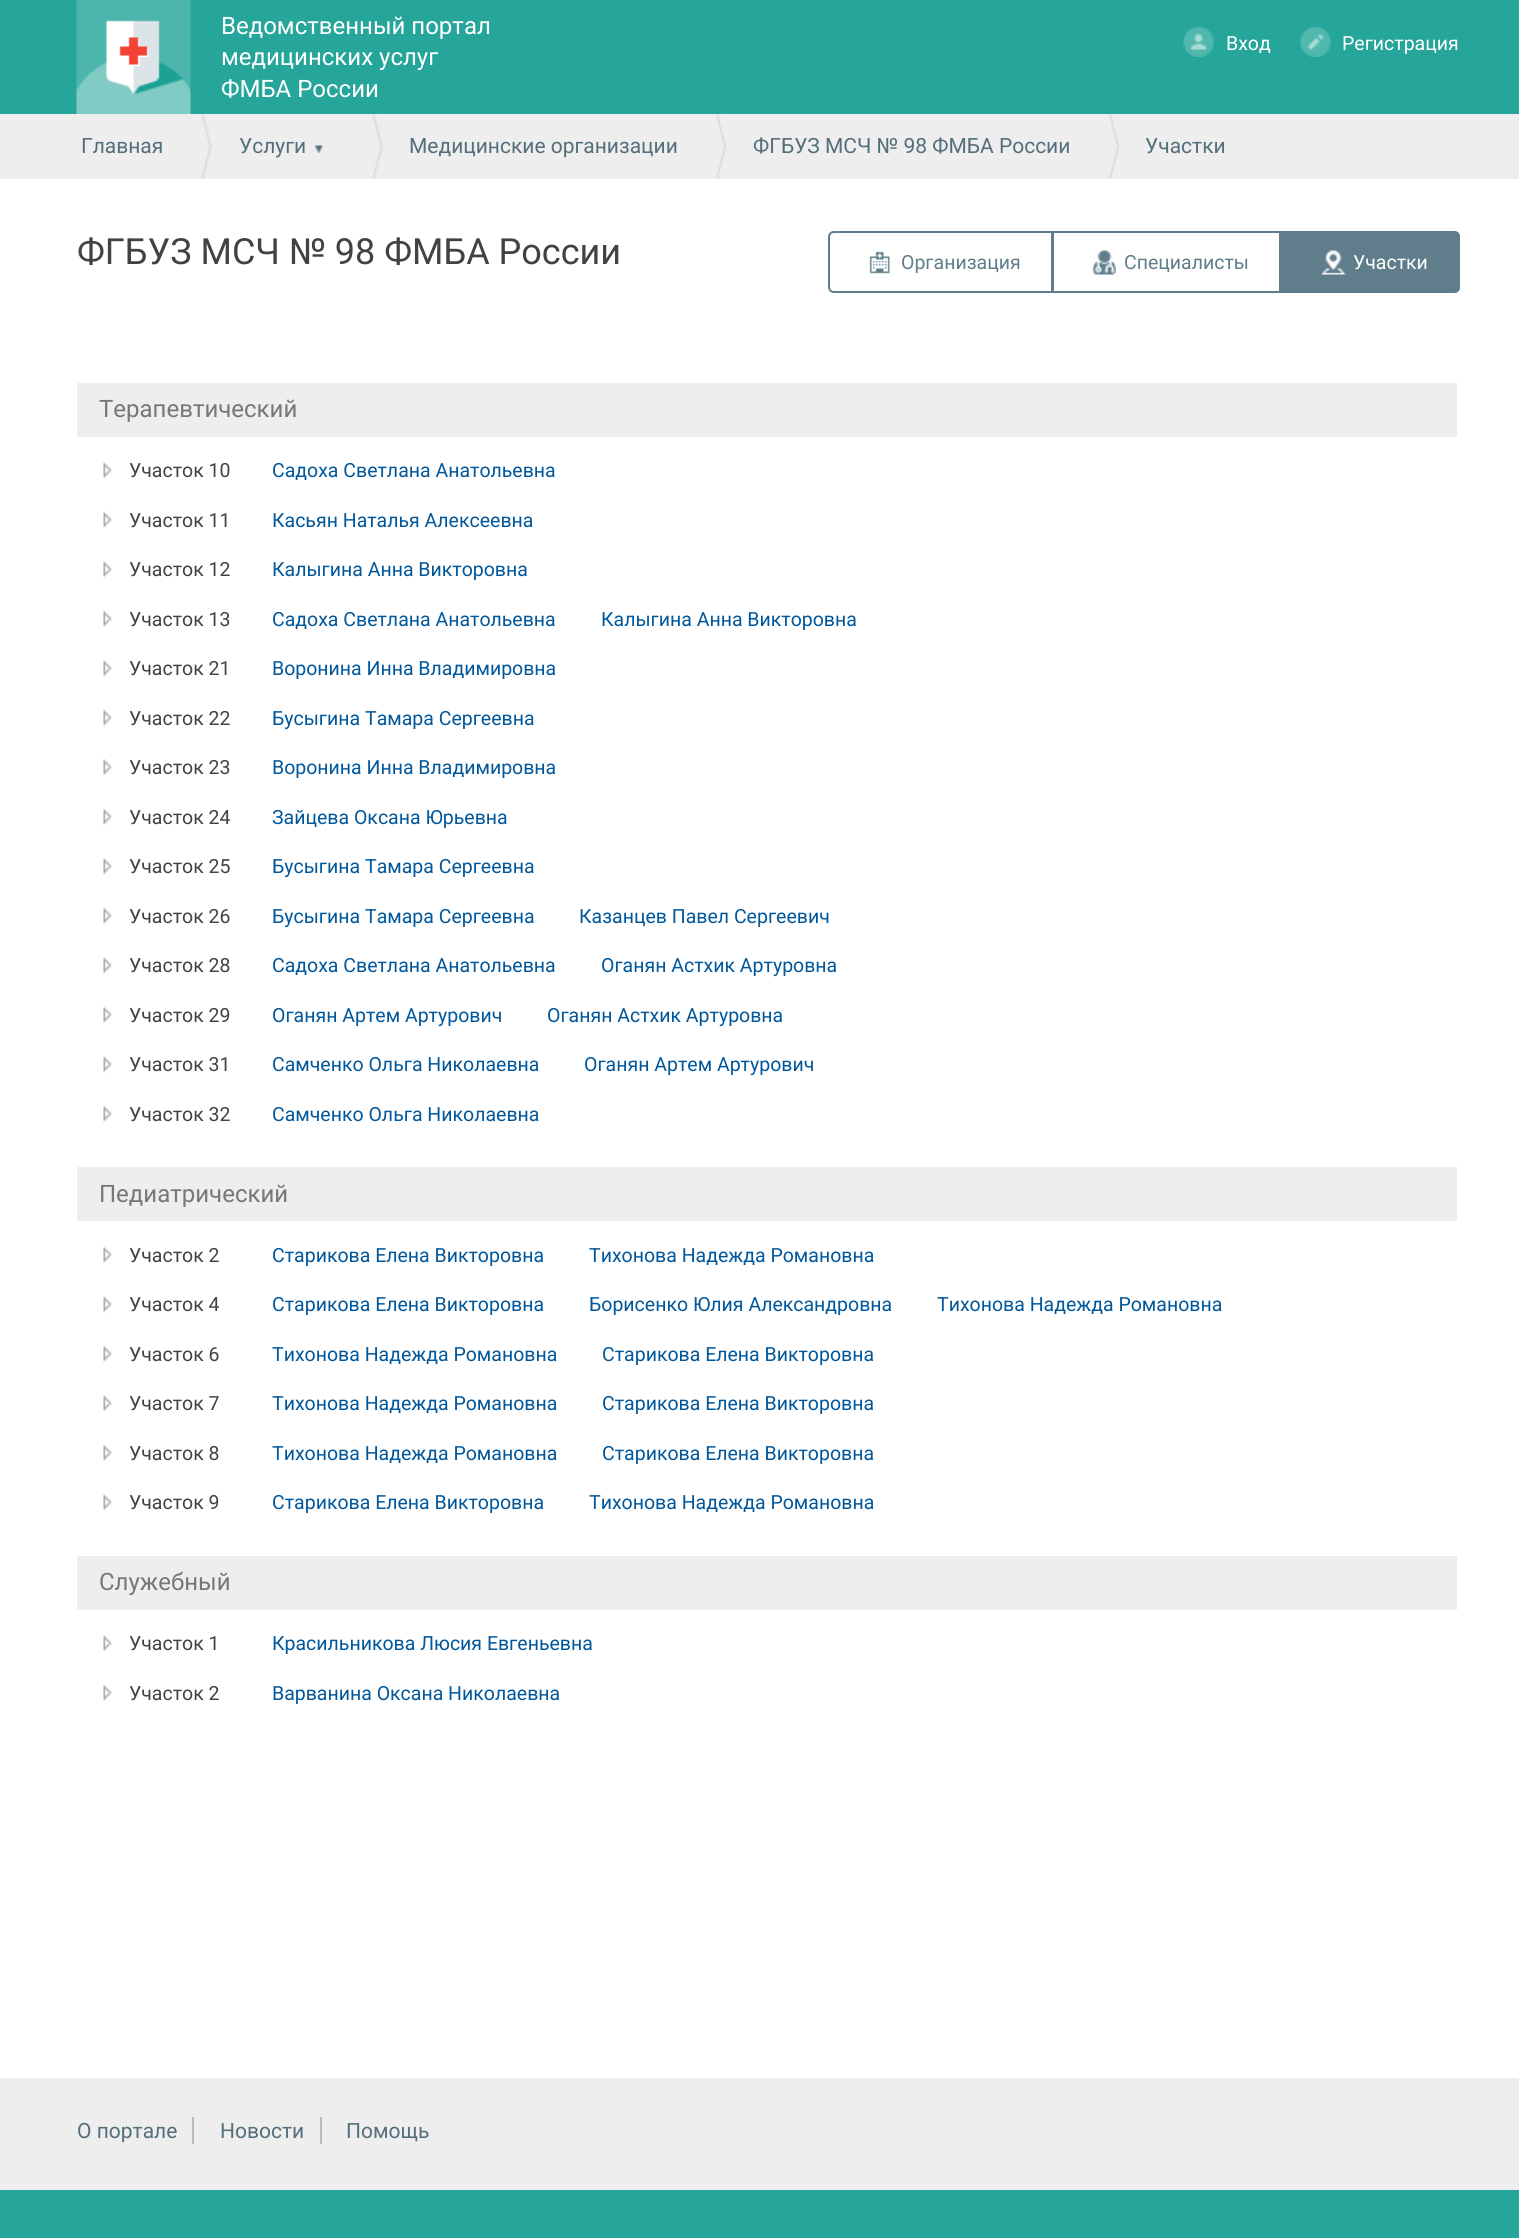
import math
import cairo

surface = cairo.ImageSurface(cairo.Format.RGB24, 1519, 2238)
ctx = cairo.Context(surface)
options = cairo.FontOptions()
options.set_hint_metrics(cairo.HintMetrics.OFF)
options.set_hint_style(cairo.HintStyle.NONE)
ctx.set_font_options(options)
ctx.set_miter_limit(4)


def ink(r, g, b):
    ctx.set_source_rgb(r / 255, g / 255, b / 255)


def write(x, y, s, family, size, color, bold=False, italic=False):
    ctx.select_font_face(family, cairo.FontSlant.ITALIC if italic else cairo.FontSlant.NORMAL, cairo.FontWeight.BOLD if bold else cairo.FontWeight.NORMAL)
    ctx.set_font_size(size)
    ink(*color)
    ctx.move_to(x, y)
    ctx.show_text(s)


def block(x, y, w, h, *color):
    ink(*color)
    ctx.rectangle(x, y, w, h)
    ctx.fill()


def paste(path, x, y, w, h):
    ctx.save()
    ctx.set_source_surface(cairo.ImageSurface.create_from_png(path), x, y)
    ctx.rectangle(x, y, w, h)
    ctx.fill()
    ctx.restore()


s1 = dict(family="Roboto", size=24, color=(255, 255, 255))
s2 = dict(family="Roboto", size=19.5, color=(255, 255, 255))
s3 = dict(family="Roboto", size=21, color=(84, 110, 122))
s4 = dict(family="Roboto", size=36, color=(66, 66, 66))
s5 = dict(family="Roboto", size=19.5, color=(96, 125, 139))
s6 = dict(family="Roboto", size=24, color=(119, 119, 119))
s7 = dict(family="Roboto", size=19.5, color=(66, 66, 66))
s8 = dict(family="Roboto", size=19.5, color=(1, 87, 155))

ink(255, 255, 255)
ctx.paint()
block(0, 0, 1519, 114, 38, 166, 154)
paste("pic1.png", 76, 0, 115, 114)
write(221, 34, "Ведомственный портал", **s1)
write(221, 65, "медицинских услуг", **s1)
write(221, 97, "ФМБА России", **s1)
paste("pic2.png", 1183, 26, 31, 31)
write(1226, 50, "Вход", **s2)
paste("pic3.png", 1300, 26, 31, 31)
write(1342, 50, "Регистрация", **s2)
block(0, 114, 1519, 65, 238, 238, 238)
write(81, 153, "Главная", **s3)
paste("pic4.png", 201, 114, 11, 65)
write(239, 153, "Услуги", **s3)
paste("pic5.png", 315, 145, 8, 8)
paste("pic6.png", 372, 114, 11, 65)
write(409, 153, "Медицинские организации", **s3)
paste("pic7.png", 715, 114, 11, 65)
write(753, 153, "ФГБУЗ МСЧ № 98 ФМБА России", **s3)
paste("pic8.png", 1108, 114, 11, 65)
write(1145, 153, "Участки", **s3)
write(77, 264, "ФГБУЗ МСЧ № 98 ФМБА России", **s4)
paste("pic9.png", 869, 251, 21, 23)
ctx.new_path()
ctx.move_to(834, 232)
ctx.line_to(1052, 232)
ctx.line_to(1052, 292)
ctx.line_to(834, 292)
ctx.curve_to(831, 292, 829, 290, 829, 287)
ctx.line_to(829, 237)
ctx.curve_to(829, 234, 831, 232, 834, 232)
ctx.close_path()
ink(96, 125, 139)
ctx.stroke()
write(901, 269, "Организация", **s5)
paste("pic10.png", 1092, 250, 24, 25)
ctx.rectangle(1053, 232, 227, 60)
ctx.stroke()
write(1124, 269, "Специалисты", **s5)
ctx.new_path()
ctx.move_to(1280, 231)
ctx.line_to(1454, 231)
ctx.curve_to(1457.5, 231, 1460, 233.5, 1460, 237)
ctx.line_to(1460, 287)
ctx.curve_to(1460, 290.5, 1457.5, 293, 1454, 293)
ctx.line_to(1280, 293)
ctx.close_path()
ctx.fill()
paste("pic11.png", 1321, 250, 25, 25)
ctx.new_path()
ctx.move_to(1281, 232)
ctx.line_to(1454, 232)
ctx.curve_to(1457, 232, 1459, 234, 1459, 237)
ctx.line_to(1459, 287)
ctx.curve_to(1459, 290, 1457, 292, 1454, 292)
ctx.line_to(1281, 292)
ctx.close_path()
ctx.stroke()
write(1353, 269, "Участки", **s2)
block(77, 383, 1380, 54, 238, 238, 238)
write(99, 417, "Терапевтический", **s6)
paste("pic12.png", 103, 462, 9, 17)
write(129, 477, "Участок 10", **s7)
write(272, 477, "Садоха Светлана Анатольевна", **s8)
paste("pic13.png", 103, 511, 9, 18)
write(129, 527, "Участок 11", **s7)
write(272, 527, "Касьян Наталья Алексеевна", **s8)
paste("pic12.png", 103, 561, 9, 17)
write(129, 576, "Участок 12", **s7)
write(272, 576, "Калыгина Анна Викторовна", **s8)
paste("pic13.png", 103, 610, 9, 18)
write(129, 626, "Участок 13", **s7)
write(272, 626, "Садоха Светлана Анатольевна", **s8)
write(601, 626, "Калыгина Анна Викторовна", **s8)
paste("pic12.png", 103, 660, 9, 17)
write(129, 675, "Участок 21", **s7)
write(272, 675, "Воронина Инна Владимировна", **s8)
paste("pic13.png", 103, 709, 9, 18)
write(129, 725, "Участок 22", **s7)
write(272, 725, "Бусыгина Тамара Сергеевна", **s8)
paste("pic12.png", 103, 759, 9, 17)
write(129, 774, "Участок 23", **s7)
write(272, 774, "Воронина Инна Владимировна", **s8)
paste("pic13.png", 103, 808, 9, 18)
write(129, 824, "Участок 24", **s7)
write(272, 824, "Зайцева Оксана Юрьевна", **s8)
paste("pic12.png", 103, 858, 9, 17)
write(129, 873, "Участок 25", **s7)
write(272, 873, "Бусыгина Тамара Сергеевна", **s8)
paste("pic13.png", 103, 907, 9, 18)
write(129, 923, "Участок 26", **s7)
write(272, 923, "Бусыгина Тамара Сергеевна", **s8)
write(579, 923, "Казанцев Павел Сергеевич", **s8)
paste("pic12.png", 103, 957, 9, 17)
write(129, 972, "Участок 28", **s7)
write(272, 972, "Садоха Светлана Анатольевна", **s8)
write(601, 972, "Оганян Астхик Артуровна", **s8)
paste("pic13.png", 103, 1006, 9, 18)
write(129, 1022, "Участок 29", **s7)
write(272, 1022, "Оганян Артем Артурович", **s8)
write(547, 1022, "Оганян Астхик Артуровна", **s8)
paste("pic12.png", 103, 1056, 9, 17)
write(129, 1071, "Участок 31", **s7)
write(272, 1071, "Самченко Ольга Николаевна", **s8)
write(584, 1071, "Оганян Артем Артурович", **s8)
paste("pic13.png", 103, 1105, 9, 18)
write(129, 1121, "Участок 32", **s7)
write(272, 1121, "Самченко Ольга Николаевна", **s8)
block(77, 1167, 1380, 54, 238, 238, 238)
write(99, 1202, "Педиатрический", **s6)
paste("pic13.png", 103, 1246, 9, 18)
write(129, 1262, "Участок 2", **s7)
write(272, 1262, "Старикова Елена Викторовна", **s8)
write(589, 1262, "Тихонова Надежда Романовна", **s8)
paste("pic12.png", 103, 1296, 9, 17)
write(129, 1311, "Участок 4", **s7)
write(272, 1311, "Старикова Елена Викторовна", **s8)
write(589, 1311, "Борисенко Юлия Александровна", **s8)
write(937, 1311, "Тихонова Надежда Романовна", **s8)
paste("pic13.png", 103, 1345, 9, 18)
write(129, 1361, "Участок 6", **s7)
write(272, 1361, "Тихонова Надежда Романовна", **s8)
write(602, 1361, "Старикова Елена Викторовна", **s8)
paste("pic12.png", 103, 1395, 9, 17)
write(129, 1410, "Участок 7", **s7)
write(272, 1410, "Тихонова Надежда Романовна", **s8)
write(602, 1410, "Старикова Елена Викторовна", **s8)
paste("pic13.png", 103, 1444, 9, 18)
write(129, 1460, "Участок 8", **s7)
write(272, 1460, "Тихонова Надежда Романовна", **s8)
write(602, 1460, "Старикова Елена Викторовна", **s8)
paste("pic12.png", 103, 1494, 9, 17)
write(129, 1509, "Участок 9", **s7)
write(272, 1509, "Старикова Елена Викторовна", **s8)
write(589, 1509, "Тихонова Надежда Романовна", **s8)
block(77, 1556, 1380, 54, 238, 238, 238)
write(99, 1590, "Служебный", **s6)
paste("pic12.png", 103, 1635, 9, 17)
write(129, 1650, "Участок 1", **s7)
write(272, 1650, "Красильникова Люсия Евгеньевна", **s8)
paste("pic13.png", 103, 1684, 9, 18)
write(129, 1700, "Участок 2", **s7)
write(272, 1700, "Варванина Оксана Николаевна", **s8)
block(0, 2078, 1519, 112, 238, 238, 238)
write(77, 2138, "О портале", **s3)
block(192, 2117, 2, 27, 189, 189, 189)
write(220, 2138, "Новости", **s3)
block(320, 2117, 2, 27, 189, 189, 189)
write(346, 2138, "Помощь", **s3)
block(0, 2190, 1519, 48, 38, 166, 154)
surface.write_to_png("screenshot.png")
